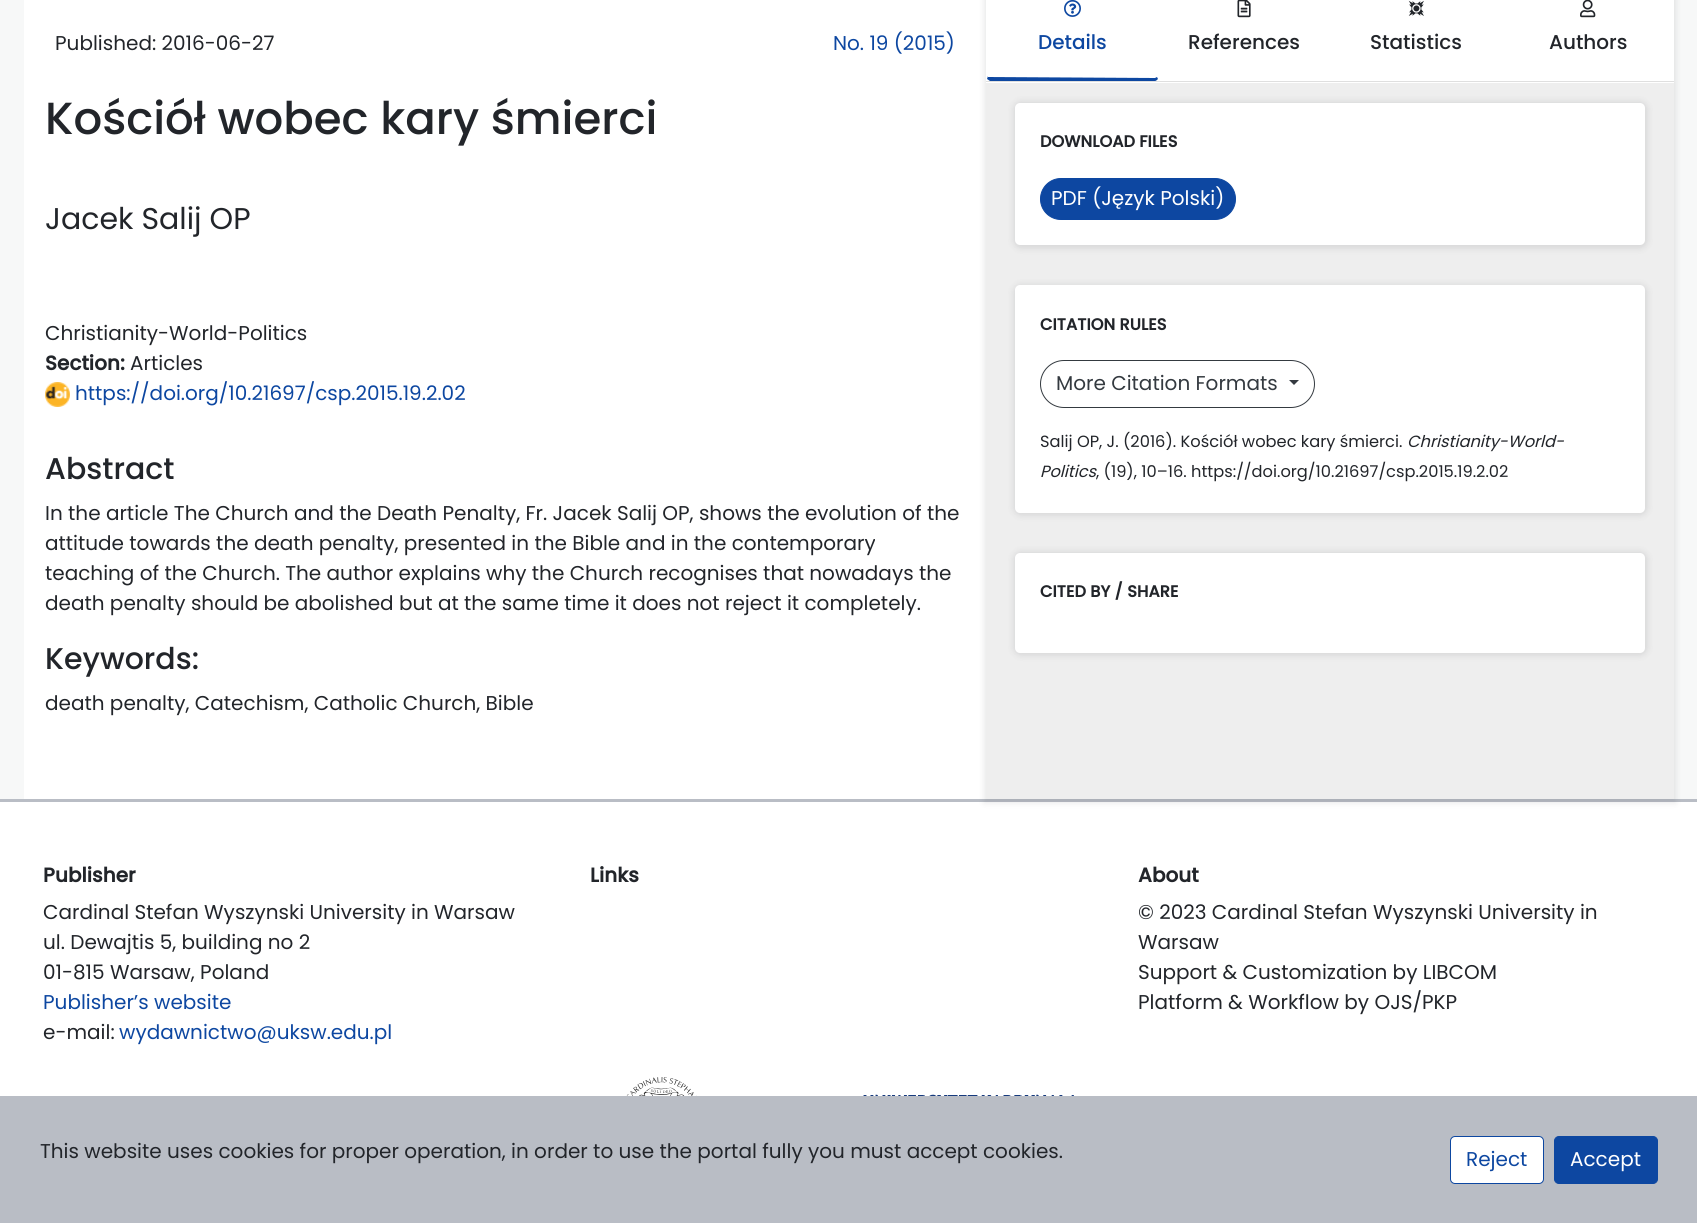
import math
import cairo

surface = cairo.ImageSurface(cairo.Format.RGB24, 1697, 1223)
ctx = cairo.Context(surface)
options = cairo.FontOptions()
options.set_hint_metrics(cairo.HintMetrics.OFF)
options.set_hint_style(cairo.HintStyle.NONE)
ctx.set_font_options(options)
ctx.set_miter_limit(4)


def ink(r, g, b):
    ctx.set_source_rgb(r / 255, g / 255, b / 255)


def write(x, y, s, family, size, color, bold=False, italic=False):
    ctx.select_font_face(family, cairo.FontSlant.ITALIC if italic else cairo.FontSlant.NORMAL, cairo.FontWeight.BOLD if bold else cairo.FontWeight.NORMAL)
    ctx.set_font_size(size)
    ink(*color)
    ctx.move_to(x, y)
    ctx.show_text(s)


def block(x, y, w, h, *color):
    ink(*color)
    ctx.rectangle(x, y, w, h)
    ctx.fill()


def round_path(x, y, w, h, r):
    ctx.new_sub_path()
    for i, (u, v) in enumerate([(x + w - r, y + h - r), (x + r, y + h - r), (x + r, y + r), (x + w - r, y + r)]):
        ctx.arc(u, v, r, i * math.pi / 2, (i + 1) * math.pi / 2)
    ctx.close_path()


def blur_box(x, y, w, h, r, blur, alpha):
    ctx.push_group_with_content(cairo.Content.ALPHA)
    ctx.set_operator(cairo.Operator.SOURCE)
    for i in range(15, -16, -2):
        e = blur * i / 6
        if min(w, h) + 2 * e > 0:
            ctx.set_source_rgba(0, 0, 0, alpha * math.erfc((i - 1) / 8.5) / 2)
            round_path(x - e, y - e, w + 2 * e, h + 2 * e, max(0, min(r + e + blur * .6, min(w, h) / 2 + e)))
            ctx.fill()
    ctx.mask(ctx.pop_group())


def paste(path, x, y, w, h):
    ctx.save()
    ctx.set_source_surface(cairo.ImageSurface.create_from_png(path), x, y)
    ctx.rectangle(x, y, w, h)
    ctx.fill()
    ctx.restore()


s1 = dict(family="Poppins", size=20, color=(34, 37, 42))
s2 = dict(family="Poppins", size=20, color=(13, 71, 161))
s3 = dict(family="Poppins Medium", size=45, color=(34, 37, 42))
s4 = dict(family="Poppins", size=30, color=(34, 37, 42))
s5 = dict(family="Poppins", size=20, color=(34, 37, 42), bold=True)
s6 = dict(family="Poppins Medium", size=30, color=(34, 37, 42))
s7 = dict(family="Poppins Medium", size=20, color=(13, 71, 161))
s8 = dict(family="Poppins Medium", size=20, color=(34, 37, 42))
s9 = dict(family="Poppins", size=16.25, color=(34, 37, 42), bold=True)
s10 = dict(family="Poppins", size=20, color=(255, 255, 255))
s11 = dict(family="Poppins", size=20, color=(52, 58, 64))
s12 = dict(family="Poppins", size=16.25, color=(34, 37, 42))
s13 = dict(family="Poppins", size=16.25, color=(34, 37, 42), italic=True)

ink(247, 248, 248)
ctx.paint()
block(24, 0, 962, 799, 255, 255, 255)
write(55, 50, "Published: 2016-06-27", **s1)
write(833, 50, "No. 19 (2015)", **s2)
write(45, 134, "Kościół wobec kary śmierci", **s3)
write(45, 229, "Jacek Salij OP", **s4)
write(45, 340, "Christianity-World-Politics", **s1)
write(45, 370, "Section:", **s5)
write(130, 370, "Articles", **s1)
paste("pic1.png", 45, 382, 25, 25)
write(75, 400, "https://doi.org/10.21697/csp.2015.19.2.02", **s2)
write(45, 479, "Abstract", **s6)
write(45, 520, "In the article The Church and the Death Penalty, Fr. Jacek Salij OP, shows the evolution of the", **s1)
write(45, 550, "attitude towards the death penalty, presented in the Bible and in the contemporary", **s1)
write(45, 580, "teaching of the Church. The author explains why the Church recognises that nowadays the", **s1)
write(45, 610, "death penalty should be abolished but at the same time it does not reject it completely.", **s1)
write(45, 669, "Keywords:", **s6)
write(45, 710, "death penalty, Catechism, Catholic Church, Bible", **s1)
block(0, 802, 1697, 294, 255, 255, 255)
block(0, 799, 1697, 3, 185, 189, 197)
ink(34, 37, 42)
blur_box(984, -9, 692, 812, 0, 3, 0.1)
block(986, 83, 688, 716, 238, 238, 238)
block(986, 0, 688, 83, 255, 255, 255)
block(986, 81, 688, 1, 223, 223, 223)
ink(13, 71, 161)
ctx.new_path()
ctx.move_to(1158, 79)
ctx.curve_to(1157, 80, 1156, 81, 1155, 81)
ctx.line_to(990, 81)
ctx.line_to(987, 79)
ctx.line_to(988, 76)
ctx.line_to(988, 77)
ctx.line_to(1155, 78)
ctx.line_to(1157, 77)
ctx.close_path()
ctx.fill()
paste("pic2.png", 1064, 0, 17, 17)
write(1038, 49, "Details", **s7)
paste("pic3.png", 1237, 0, 14, 18)
write(1188, 49, "References", **s8)
paste("pic4.png", 1408, 0, 16, 16)
write(1370, 49, "Statistics", **s8)
paste("pic5.png", 1580, 0, 16, 18)
write(1549, 49, "Authors", **s8)
ink(34, 37, 42)
blur_box(1013, 101, 635, 148, 8, 3, 0.1)
ink(255, 255, 255)
round_path(1015, 103, 630, 142, 5)
ctx.fill()
write(1040, 147, "DOWNLOAD FILES", **s9)
ink(13, 71, 161)
round_path(1040.5, 178.5, 195, 41, 20.5)
ctx.fill_preserve()
ctx.set_line_width(1)
ctx.stroke()
write(1051, 205, "PDF (Język Polski)", **s10)
ink(34, 37, 42)
blur_box(1013, 284, 635, 232, 8, 3, 0.1)
ink(255, 255, 255)
round_path(1015, 285, 630, 228, 5)
ctx.fill()
write(1040, 330, "CITATION RULES", **s9)
round_path(1040.5, 360.5, 274, 47, 23.5)
ink(52, 58, 64)
ctx.stroke()
write(1056, 390, "More Citation Formats", **s11)
ctx.new_path()
ctx.move_to(1289, 380)
ctx.line_to(1299, 380)
ctx.line_to(1294, 385)
ctx.close_path()
ctx.fill()
write(1040, 447, "Salij OP, J. (2016). Kościół wobec kary śmierci.", **s12)
write(1407, 447, "Christianity-World-", **s13)
write(1040, 477, "Politics", **s13)
write(1096, 477, ", (19), 10–16. https://doi.org/10.21697/csp.2015.19.2.02", **s12)
ink(34, 37, 42)
blur_box(1013, 551, 635, 105, 8, 3, 0.1)
ink(255, 255, 255)
round_path(1015, 553, 630, 100, 5)
ctx.fill()
write(1040, 597, "CITED BY / SHARE", **s9)
write(43, 882, "Publisher", **s5)
write(43, 919, "Cardinal Stefan Wyszynski University in Warsaw", **s1)
write(43, 949, "ul. Dewajtis 5, building no 2", **s1)
write(43, 979, "01-815 Warsaw, Poland", **s1)
write(43, 1009, "Publisher’s website", **s2)
write(43, 1039, "e-mail:", **s1)
write(119, 1039, "wydawnictwo@uksw.edu.pl", **s2)
write(590, 882, "Links", **s5)
write(1138, 882, "About", **s5)
write(1138, 919, "© 2023 Cardinal Stefan Wyszynski University in", **s1)
write(1138, 949, "Warsaw", **s1)
write(1138, 979, "Support & Customization by LIBCOM", **s1)
write(1138, 1009, "Platform & Workflow by OJS/PKP", **s1)
paste("pic6.png", 626, 1077, 448, 19)
block(0, 1096, 1697, 127, 185, 189, 197)
write(40, 1158, "This website uses cookies for proper operation, in order to use the portal fully you must accept cookies.", **s1)
ink(255, 255, 255)
round_path(1450.5, 1136.5, 93, 47, 4.5)
ctx.fill_preserve()
ink(13, 71, 161)
ctx.stroke()
write(1466, 1166, "Reject", **s2)
round_path(1554.5, 1136.5, 103, 47, 4.5)
ctx.fill_preserve()
ctx.stroke()
write(1570, 1166, "Accept", **s10)
surface.write_to_png("screenshot.png")
